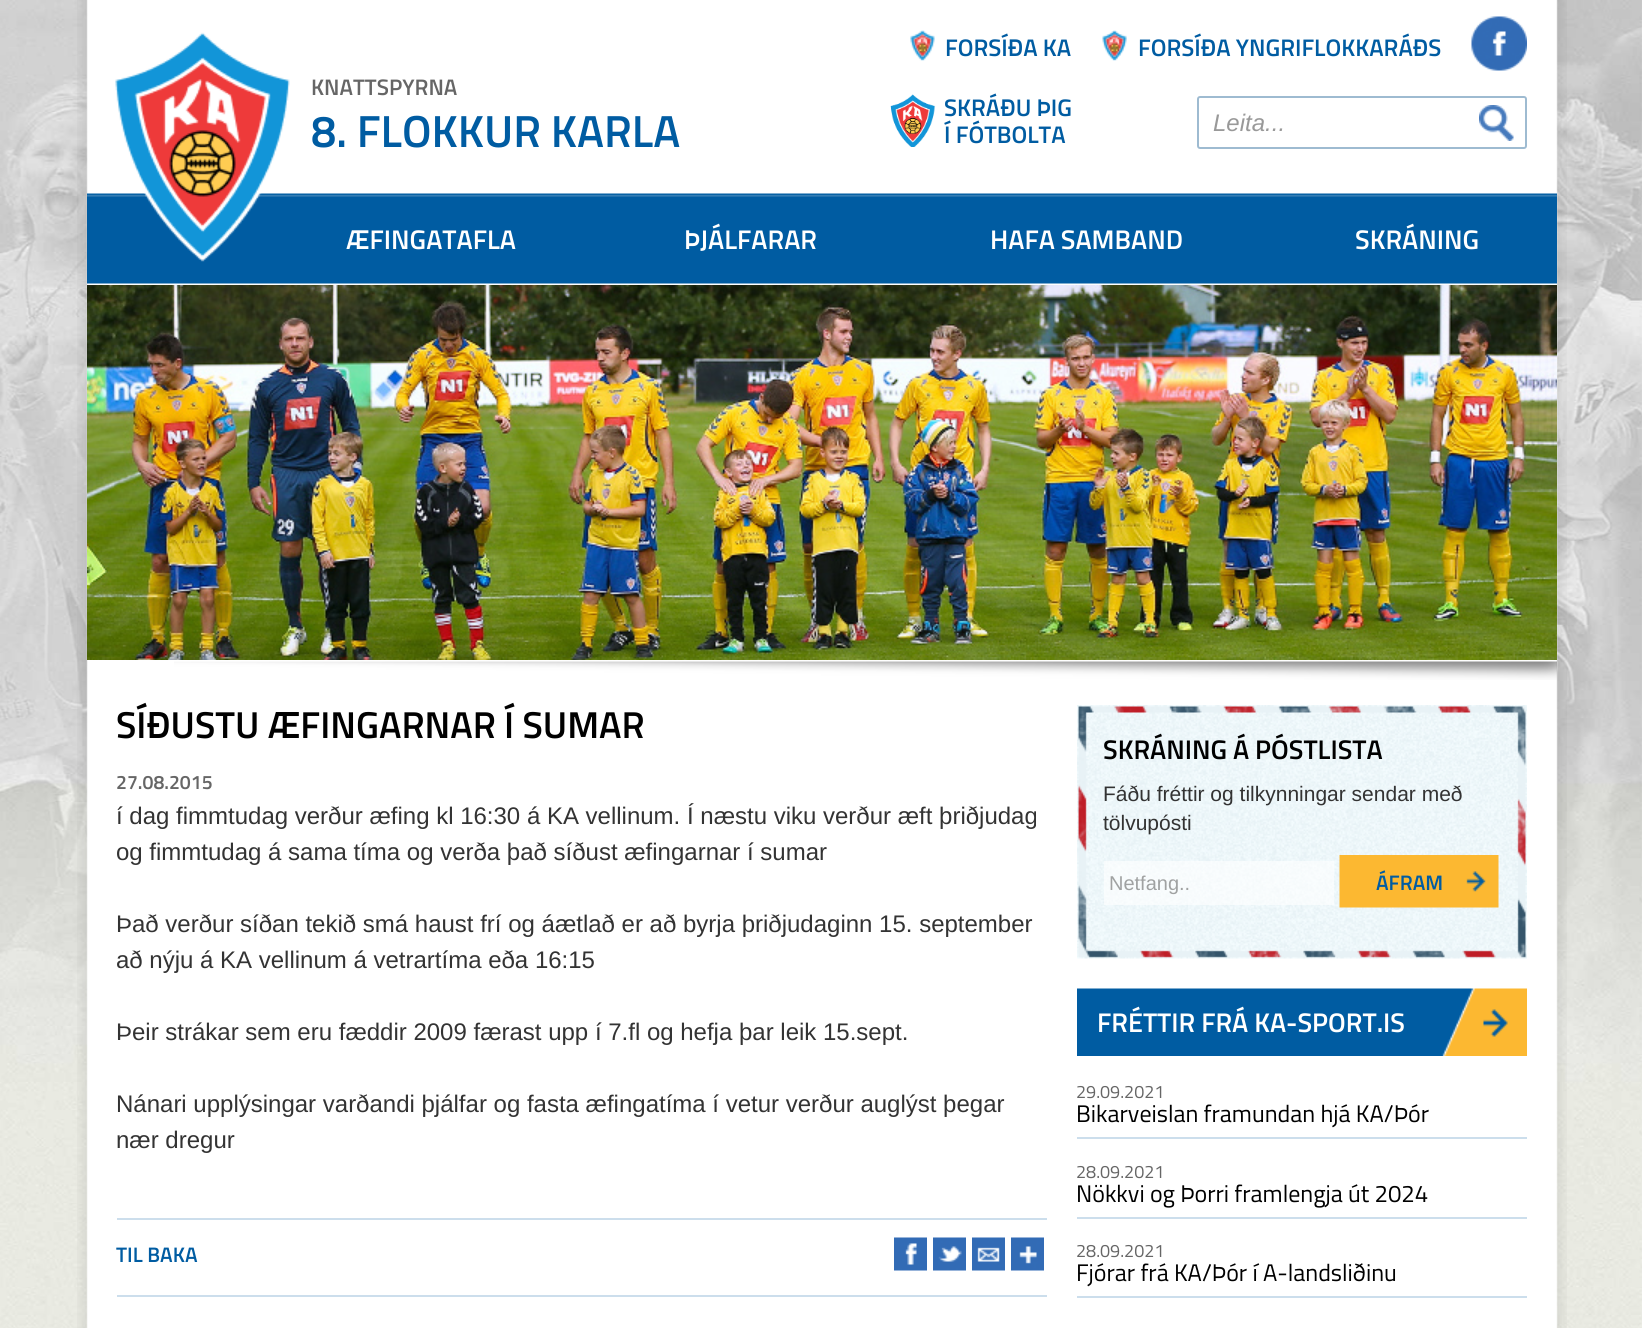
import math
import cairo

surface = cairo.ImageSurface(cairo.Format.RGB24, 1642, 1328)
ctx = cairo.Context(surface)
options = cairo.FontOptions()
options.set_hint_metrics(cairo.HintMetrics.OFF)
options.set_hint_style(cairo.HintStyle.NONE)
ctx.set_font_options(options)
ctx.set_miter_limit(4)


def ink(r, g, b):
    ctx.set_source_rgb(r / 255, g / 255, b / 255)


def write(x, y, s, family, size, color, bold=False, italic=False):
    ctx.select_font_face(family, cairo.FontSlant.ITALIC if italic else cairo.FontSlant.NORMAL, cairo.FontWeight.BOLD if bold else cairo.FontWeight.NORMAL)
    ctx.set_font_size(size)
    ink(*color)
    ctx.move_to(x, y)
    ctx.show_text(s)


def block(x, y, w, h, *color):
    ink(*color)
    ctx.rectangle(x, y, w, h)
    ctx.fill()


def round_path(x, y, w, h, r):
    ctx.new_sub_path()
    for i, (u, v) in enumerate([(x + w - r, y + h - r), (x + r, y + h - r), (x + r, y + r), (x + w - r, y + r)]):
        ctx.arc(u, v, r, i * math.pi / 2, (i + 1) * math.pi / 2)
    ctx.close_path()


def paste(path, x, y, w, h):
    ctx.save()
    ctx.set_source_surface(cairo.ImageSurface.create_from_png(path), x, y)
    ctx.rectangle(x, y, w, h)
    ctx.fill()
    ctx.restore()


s1 = dict(family="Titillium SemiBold", size=24, color=(0, 92, 162))
s2 = dict(family="Titillium SemiBold", size=22.5, color=(102, 102, 102))
s3 = dict(family="Titillium SemiBold", size=45, color=(0, 92, 162))
s4 = dict(family="Liberation Sans", size=24, color=(153, 153, 153), italic=True)
s5 = dict(family="Titillium SemiBold", size=27, color=(255, 255, 255))
s6 = dict(family="Titillium SemiBold", size=37.5, color=(0, 0, 0))
s7 = dict(family="Titillium SemiBold", size=19.5, color=(102, 102, 102))
s8 = dict(family="Liberation Sans", size=24, color=(51, 51, 51))
s9 = dict(family="Titillium SemiBold", size=21, color=(0, 92, 162))
s10 = dict(family="Titillium SemiBold", size=27, color=(0, 0, 0))
s11 = dict(family="Liberation Sans", size=21, color=(51, 51, 51))
s12 = dict(family="Liberation Sans", size=20, color=(160, 162, 162))
s13 = dict(family="Titillium", size=18, color=(102, 102, 102))
s14 = dict(family="Titillium", size=24, color=(0, 0, 0))

ink(255, 255, 255)
ctx.paint()
paste("pic1.png", 1641, 0, 1, 1328)
paste("pic3.png", 0, 0, 1642, 1328)
paste("pic2.png", 77, 0, 1490, 1328)
paste("pic4.png", 910, 30, 25, 31)
write(945, 56, "FORSÍÐA KA", **s1)
paste("pic5.png", 1102, 30, 25, 31)
write(1138, 56, "FORSÍÐA YNGRIFLOKKARÁÐS", **s1)
paste("pic6.png", 1471, 16, 56, 55)
paste("pic12.png", 87, 193, 1470, 91)
paste("pic7.png", 115, 32, 175, 230)
write(311, 95, "KNATTSPYRNA", **s2)
write(311, 147, "8. FLOKKUR KARLA", **s3)
paste("pic8.png", 890, 94, 46, 53)
write(944, 116, "SKRÁÐU ÞIG", **s1)
write(944, 143, "Í FÓTBOLTA", **s1)
paste("pic9.png", 174, 661, 1383, 19)
paste("pic10.png", 87, 285, 1470, 375)
round_path(1198, 97, 328, 51, 2)
ink(158, 187, 209)
ctx.stroke()
write(1213, 131, "Leita...", **s4)
paste("pic11.png", 1479, 105, 35, 36)
write(346, 249, "ÆFINGATAFLA", **s5)
write(684, 249, "ÞJÁLFARAR", **s5)
write(990, 249, "HAFA SAMBAND", **s5)
write(1355, 249, "SKRÁNING", **s5)
write(116, 738, "SÍÐUSTU ÆFINGARNAR Í SUMAR", **s6)
block(117, 1295, 930, 2, 204, 222, 236)
write(116, 789, "27.08.2015", **s7)
write(116, 824, "í dag fimmtudag verður æfing kl 16:30 á KA vellinum. Í næstu viku verður æft þriðjudag", **s8)
write(116, 860, "og fimmtudag á sama tíma og verða það síðust æfingarnar í sumar", **s8)
write(116, 932, "Það verður síðan tekið smá haust frí og áætlað er að byrja þriðjudaginn 15. september", **s8)
write(116, 968, "að nýju á KA vellinum á vetrartíma eða 16:15", **s8)
write(116, 1040, "Þeir strákar sem eru fæddir 2009 færast upp í 7.fl og hefja þar leik 15.sept.", **s8)
write(116, 1112, "Nánari upplýsingar varðandi þjálfar og fasta æfingatíma í vetur verður auglýst þegar", **s8)
write(116, 1148, "nær dregur", **s8)
block(117, 1218, 930, 2, 204, 222, 236)
write(116, 1262, "TIL BAKA", **s9)
paste("pic13.png", 894, 1237, 33, 34)
paste("pic14.png", 933, 1237, 33, 34)
paste("pic15.png", 972, 1237, 33, 34)
paste("pic16.png", 1011, 1237, 33, 34)
paste("pic17.png", 1077, 705, 450, 254)
write(1103, 759, "SKRÁNING Á PÓSTLISTA", **s10)
write(1103, 801, "Fáðu fréttir og tilkynningar sendar með", **s11)
write(1103, 830, "tölvupósti", **s11)
ctx.set_source_rgba(1, 1, 1, 0.6)
ctx.rectangle(1104, 861, 230, 44)
ctx.fill()
write(1109, 890, "Netfang..", **s12)
paste("pic18.png", 1339, 855, 160, 53)
write(1376, 890, "ÁFRAM", **s9)
paste("pic19.png", 1077, 988, 450, 68)
write(1097, 1032, "FRÉTTIR FRÁ KA-SPORT.IS", **s5)
block(1077, 1137, 450, 2, 204, 222, 236)
write(1076, 1098, "29.09.2021", **s13)
write(1076, 1122, "Bikarveislan framundan hjá KA/Þór", **s14)
block(1077, 1217, 450, 2, 204, 222, 236)
write(1076, 1178, "28.09.2021", **s13)
write(1076, 1202, "Nökkvi og Þorri framlengja út 2024", **s14)
block(1077, 1296, 450, 2, 204, 222, 236)
write(1076, 1257, "28.09.2021", **s13)
write(1076, 1281, "Fjórar frá KA/Þór í A-landsliðinu", **s14)
surface.write_to_png("screenshot.png")
